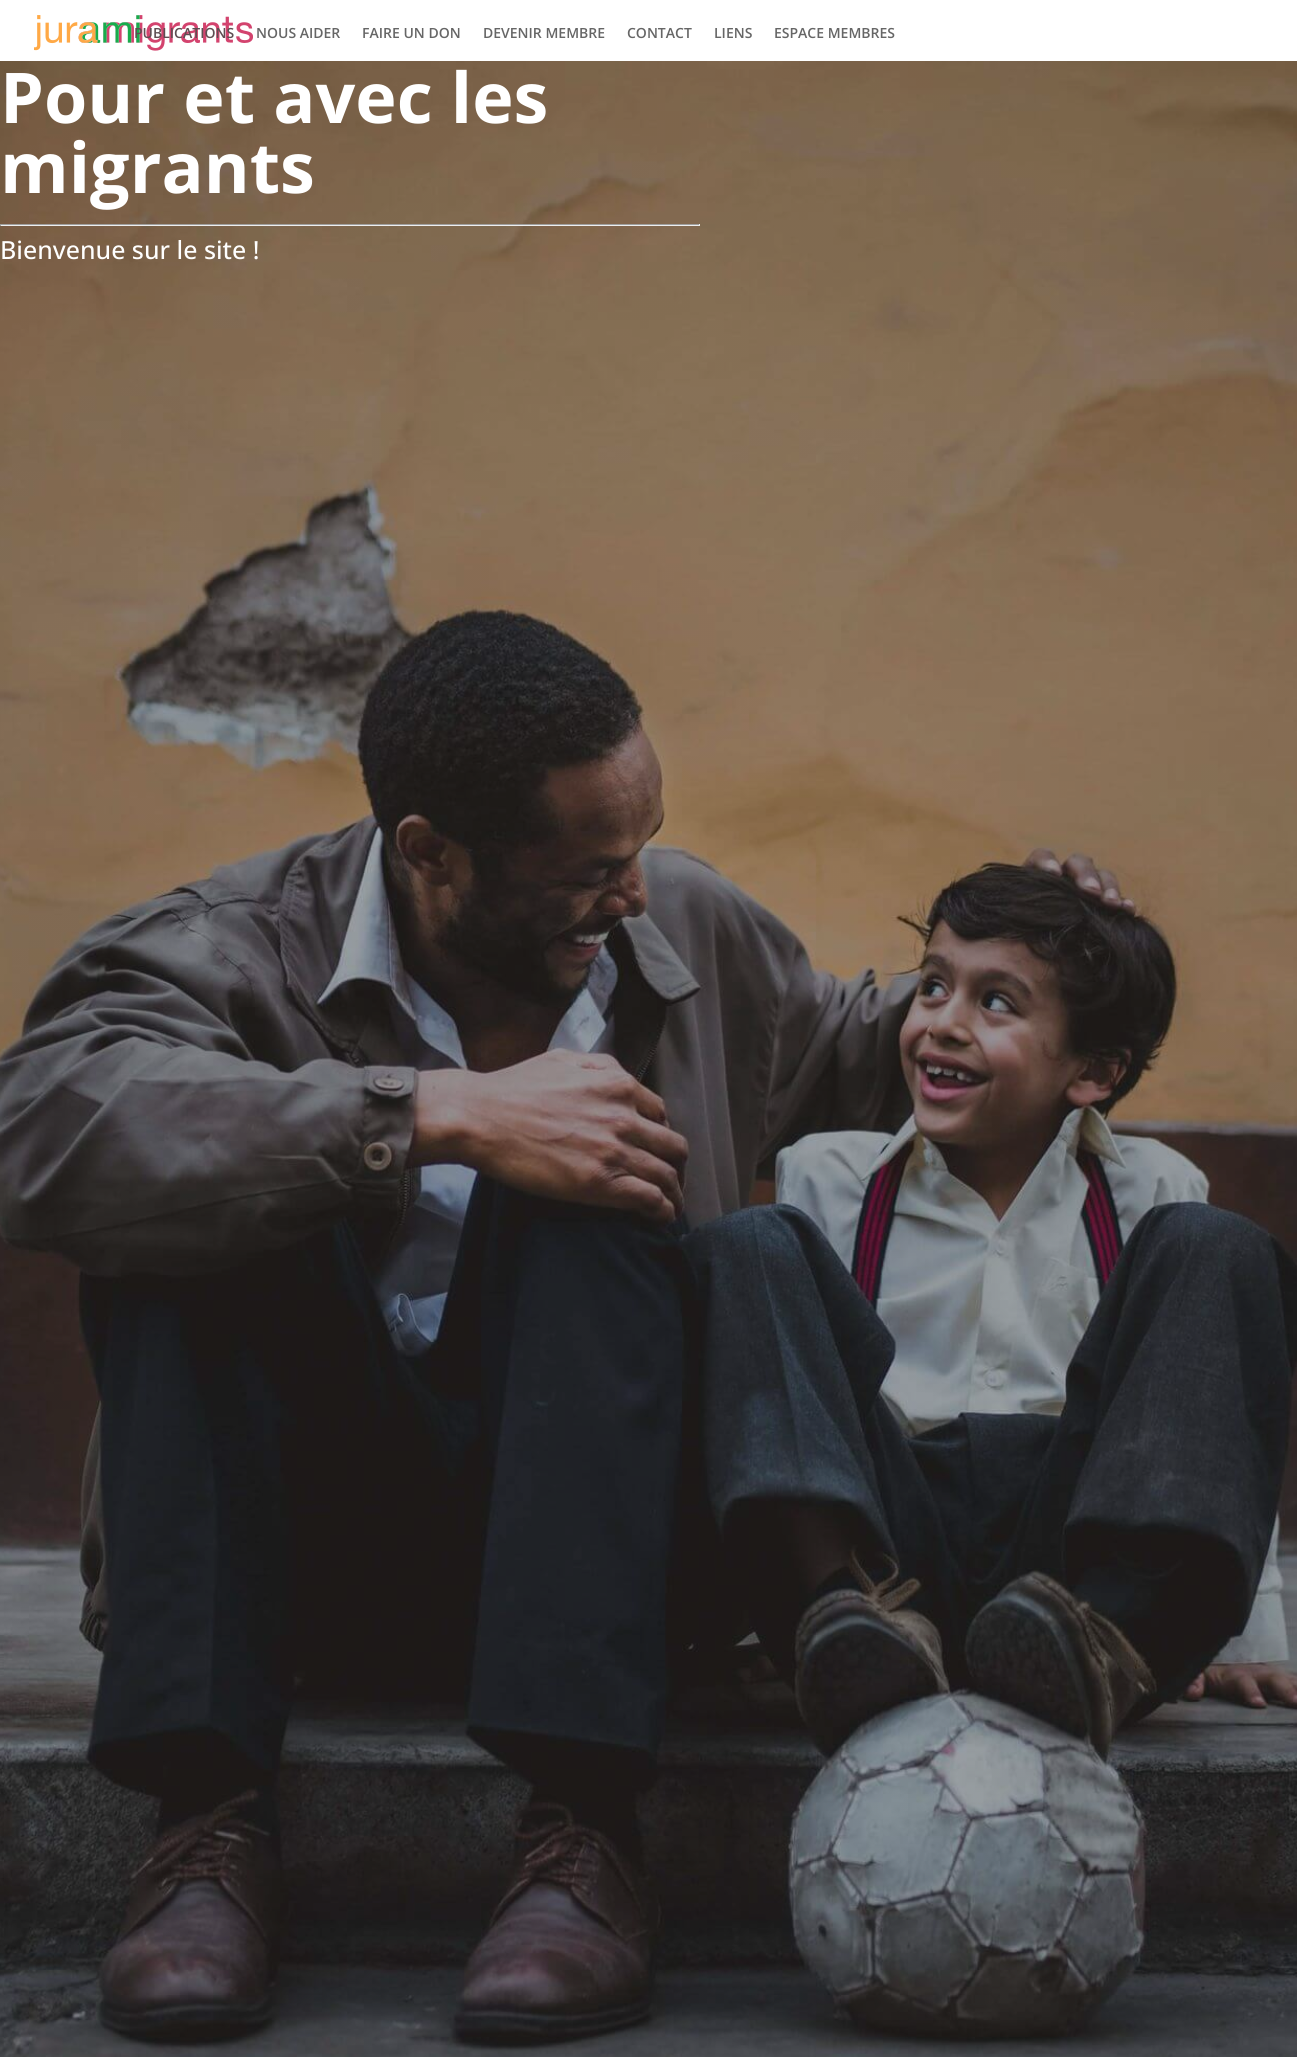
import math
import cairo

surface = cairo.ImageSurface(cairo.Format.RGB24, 1297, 2057)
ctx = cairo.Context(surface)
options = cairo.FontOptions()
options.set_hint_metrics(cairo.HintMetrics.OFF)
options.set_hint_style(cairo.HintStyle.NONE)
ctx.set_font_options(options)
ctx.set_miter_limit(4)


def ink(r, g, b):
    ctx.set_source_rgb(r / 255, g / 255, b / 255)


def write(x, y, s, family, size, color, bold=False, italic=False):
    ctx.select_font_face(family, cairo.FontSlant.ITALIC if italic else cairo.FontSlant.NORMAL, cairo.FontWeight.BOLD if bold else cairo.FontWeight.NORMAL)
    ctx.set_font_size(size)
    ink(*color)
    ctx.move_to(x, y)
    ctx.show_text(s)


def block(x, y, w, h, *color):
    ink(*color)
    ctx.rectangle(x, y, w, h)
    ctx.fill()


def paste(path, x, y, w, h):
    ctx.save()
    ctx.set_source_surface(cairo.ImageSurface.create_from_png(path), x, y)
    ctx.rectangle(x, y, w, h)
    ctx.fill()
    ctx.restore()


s1 = dict(family="Open Sans SemiBold", size=14, color=(94, 78, 82))
s2 = dict(family="Open Sans SemiBold", size=14, color=(102, 102, 102))
s3 = dict(family="Open Sans", size=70, color=(255, 255, 255), bold=True)
s4 = dict(family="Open Sans Medium", size=25, color=(255, 255, 255))

ink(255, 255, 255)
ctx.paint()
paste("pic1.png", 34, 15, 219, 36)
write(134, 38, "PUBLICATIONS", **s1)
write(256, 38, "NOUS AIDER", **s2)
write(362, 38, "FAIRE UN DON", **s2)
write(483, 38, "DEVENIR MEMBRE", **s2)
write(627, 38, "CONTACT", **s2)
write(714, 38, "LIENS", **s2)
write(774, 38, "ESPACE MEMBRES", **s2)
paste("pic2.png", 0, 61, 1297, 1996)
write(0, 123, "Pour et avec les", **s3)
write(0, 193, "migrants", **s3)
block(0, 224, 700, 1, 159, 159, 159)
block(699, 224, 1, 2, 238, 238, 238)
block(0, 225, 700, 1, 238, 238, 238)
block(0, 224, 1, 2, 159, 159, 159)
write(0, 259, "Bienvenue sur le site !", **s4)
surface.write_to_png("screenshot.png")
